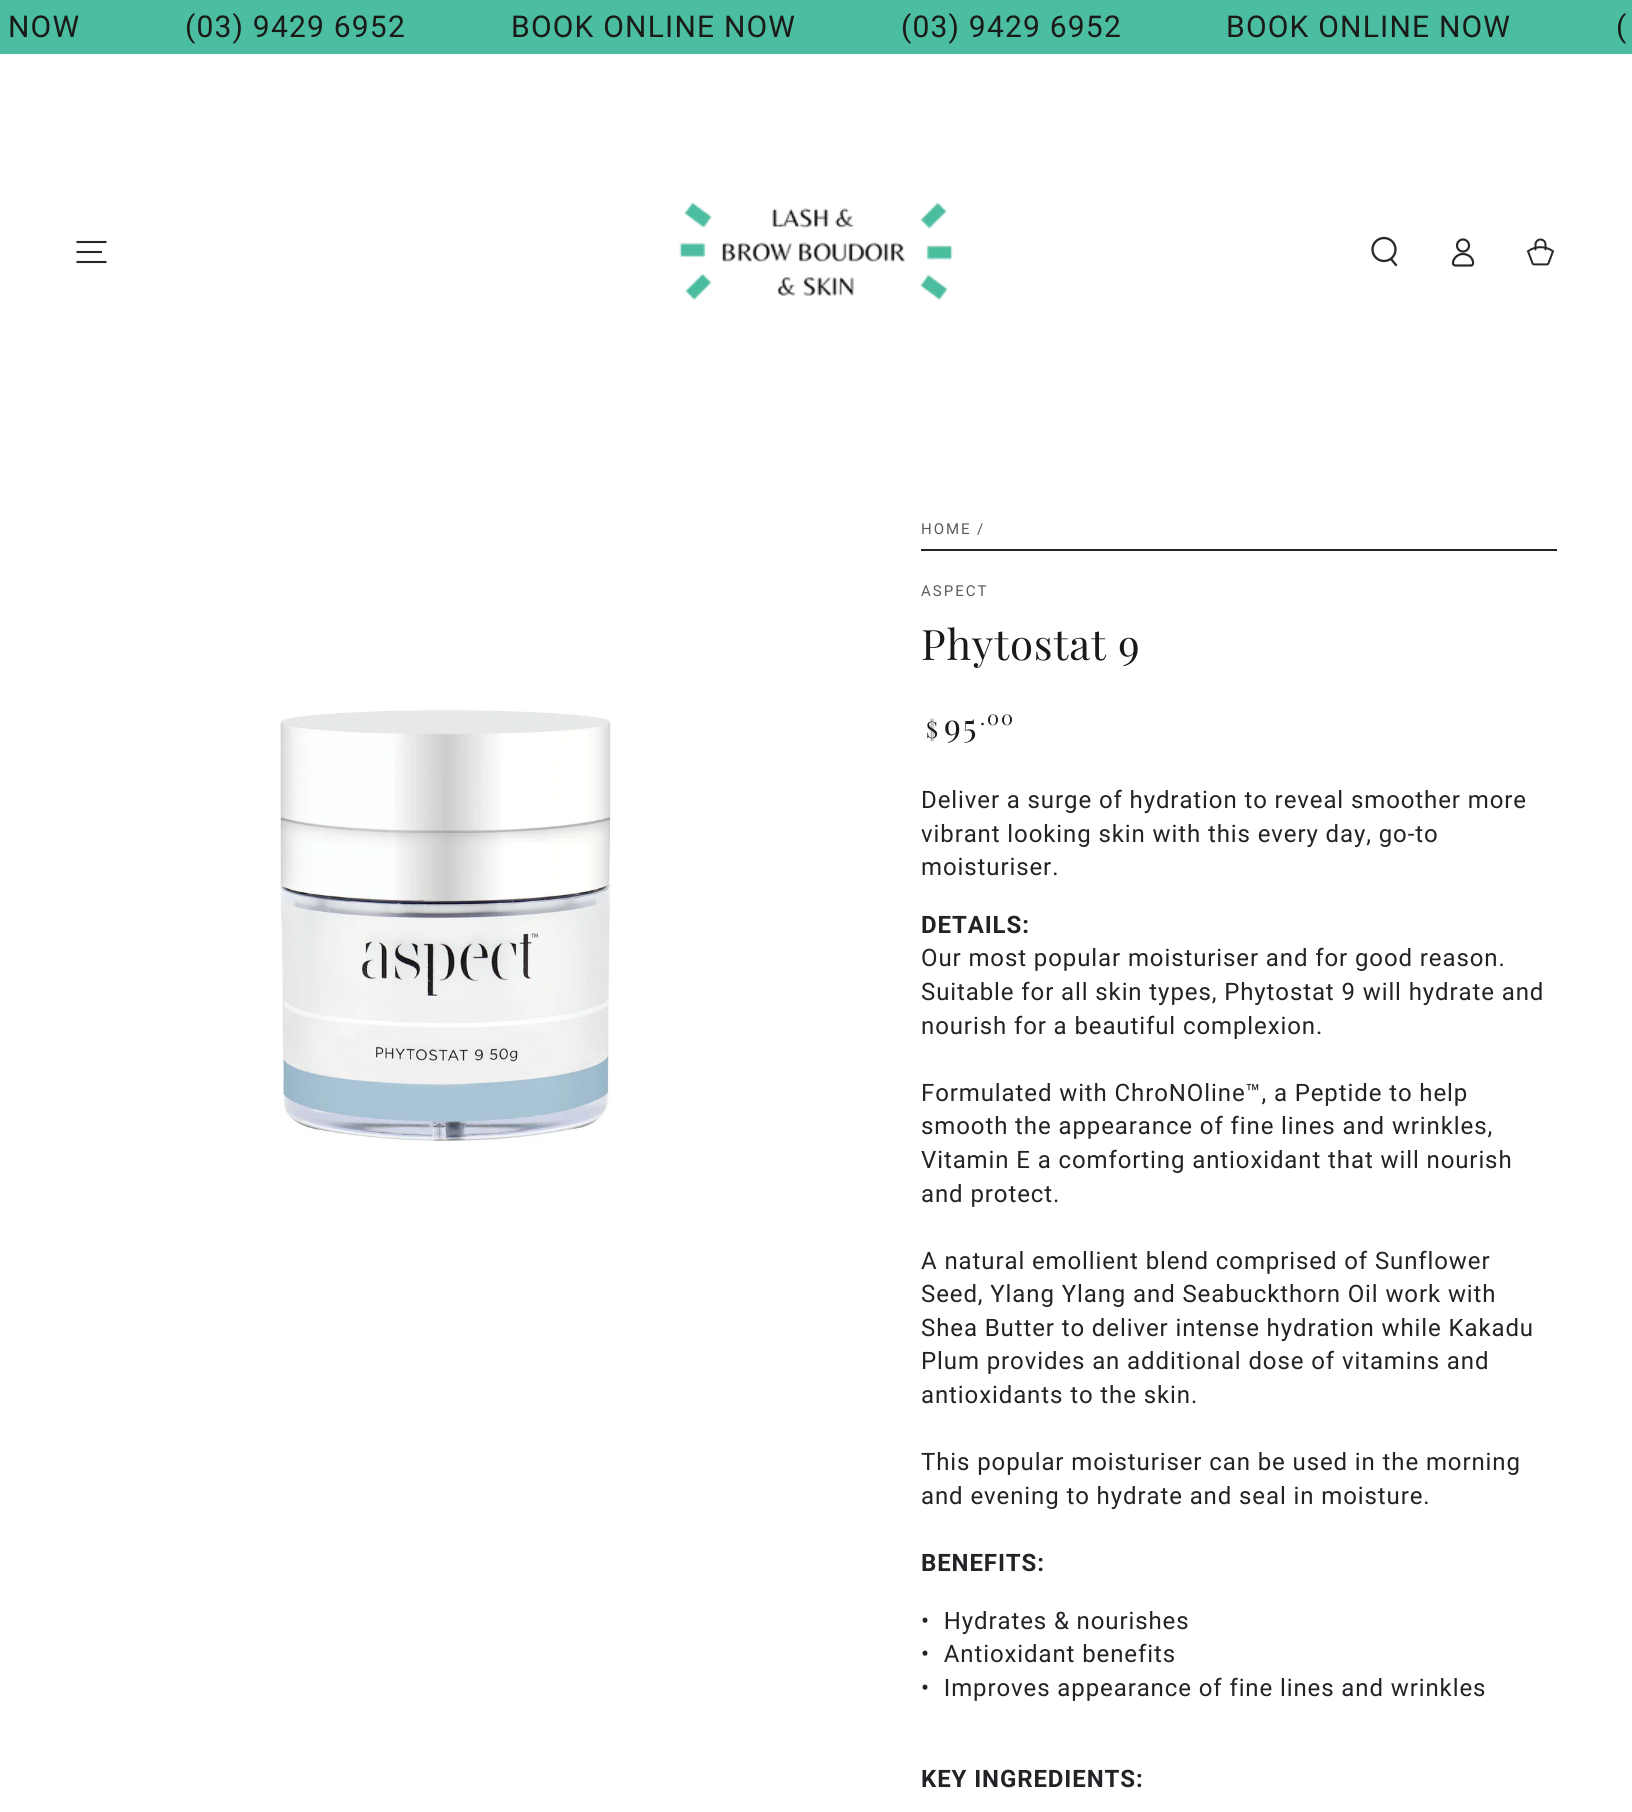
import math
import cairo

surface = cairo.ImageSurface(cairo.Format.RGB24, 1632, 1812)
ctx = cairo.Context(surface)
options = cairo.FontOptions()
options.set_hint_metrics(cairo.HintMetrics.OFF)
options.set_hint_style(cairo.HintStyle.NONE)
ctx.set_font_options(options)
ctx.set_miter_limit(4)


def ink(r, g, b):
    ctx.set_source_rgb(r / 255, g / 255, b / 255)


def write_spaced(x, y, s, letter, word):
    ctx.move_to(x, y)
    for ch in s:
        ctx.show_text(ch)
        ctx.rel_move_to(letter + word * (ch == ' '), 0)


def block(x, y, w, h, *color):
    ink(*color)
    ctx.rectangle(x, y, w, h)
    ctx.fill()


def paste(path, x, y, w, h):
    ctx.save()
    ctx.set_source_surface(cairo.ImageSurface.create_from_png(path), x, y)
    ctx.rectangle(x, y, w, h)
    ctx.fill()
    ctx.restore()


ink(255, 255, 255)
ctx.paint()
block(0, 0, 1632, 54, 75, 189, 160)
ctx.select_font_face("Roboto")
ctx.set_font_size(30)
ink(26, 27, 24)
write_spaced(8, 37, "NOW", 1.2, 0)
write_spaced(185, 37, "(03) 9429 6952", 1.2, 0)
write_spaced(511, 37, "BOOK ONLINE NOW", 1.2, 0)
write_spaced(901, 37, "(03) 9429 6952", 1.2, 0)
write_spaced(1226, 37, "BOOK ONLINE NOW", 1.2, 0)
write_spaced(1616, 37, "(", 1.2, 0)
ctx.new_path()
ctx.move_to(76.5, 262)
ctx.line_to(106.5, 262)
ctx.move_to(76.5, 252)
ctx.line_to(102, 252)
ctx.move_to(76.5, 242)
ctx.line_to(106.5, 242)
ink(40, 40, 40)
ctx.set_line_width(2.1)
ctx.stroke()
paste("pic1.png", 679, 202, 274, 99)
ctx.arc(1384, 249.5, 11.5, 0, 2 * math.pi)
ctx.set_line_width(2.3)
ctx.stroke()
ctx.new_path()
ctx.move_to(1391, 259)
ctx.line_to(1396, 265)
ctx.set_line_cap(cairo.LineCap.ROUND)
ctx.stroke()
ctx.new_path()
ctx.move_to(1463, 254)
ctx.curve_to(1454, 254, 1450, 265.5, 1455.5, 265.5)
ctx.line_to(1471.5, 265.5)
ctx.curve_to(1475, 264, 1472, 258, 1470, 256.5)
ctx.curve_to(1468, 255, 1465.5, 254, 1463, 254)
ctx.close_path()
ctx.set_line_width(2.2)
ctx.set_line_cap(cairo.LineCap.BUTT)
ctx.stroke()
ctx.arc(1463, 245.5, 6, 0, 2 * math.pi)
ctx.stroke()
paste("pic2.png", 1526, 238, 29, 28)
paste("pic3.png", 280, 709, 331, 433)
block(921, 549, 636, 2, 33, 35, 38)
ctx.set_font_size(15)
ink(89, 90, 92)
write_spaced(921, 534, "HOME", 2, 0)
write_spaced(977, 534, "/", 2, 0)
write_spaced(921, 596, "ASPECT", 2, 0)
ctx.select_font_face("Playfair Display")
ctx.set_font_size(42)
ink(26, 27, 24)
write_spaced(921, 660, "Phytostat 9", 0.9, 0)
ctx.set_font_size(23)
write_spaced(926, 738, "$", 2, 0)
ctx.set_font_size(33)
write_spaced(944, 738, "95", 2, 0)
ctx.set_font_size(20)
write_spaced(980, 725, ".00", 2, 0)
ctx.select_font_face("Roboto")
ctx.set_font_size(24)
ink(33, 35, 38)
write_spaced(921, 808, "Deliver a surge of hydration to reveal smoother more", 0.9, 0)
write_spaced(921, 842, "vibrant looking skin with this every day, go-to", 0.9, 0)
write_spaced(921, 875, "moisturiser.", 0.9, 0)
ctx.select_font_face("Roboto", cairo.FontSlant.NORMAL, cairo.FontWeight.BOLD)
write_spaced(921, 933, "DETAILS:", 0.9, 0)
ctx.select_font_face("Roboto")
write_spaced(921, 966, "Our most popular moisturiser and for good reason.", 0.9, 0)
write_spaced(921, 1000, "Suitable for all skin types, Phytostat 9 will hydrate and", 0.9, 0)
write_spaced(921, 1034, "nourish for a beautiful complexion.", 0.9, 0)
write_spaced(921, 1101, "Formulated with ChroNOline™, a Peptide to help", 0.9, 0)
write_spaced(921, 1134, "smooth the appearance of fine lines and wrinkles,", 0.9, 0)
write_spaced(921, 1168, "Vitamin E a comforting antioxidant that will nourish", 0.9, 0)
write_spaced(921, 1202, "and protect.", 0.9, 0)
write_spaced(921, 1269, "A natural emollient blend comprised of Sunflower", 0.9, 0)
write_spaced(921, 1302, "Seed, Ylang Ylang and Seabuckthorn Oil work with", 0.9, 0)
write_spaced(921, 1336, "Shea Butter to deliver intense hydration while Kakadu", 0.9, 0)
write_spaced(921, 1369, "Plum provides an additional dose of vitamins and", 0.9, 0)
write_spaced(921, 1403, "antioxidants to the skin.", 0.9, 0)
write_spaced(921, 1470, "This popular moisturiser can be used in the morning", 0.9, 0)
write_spaced(921, 1504, "and evening to hydrate and seal in moisture.", 0.9, 0)
ctx.select_font_face("Roboto", cairo.FontSlant.NORMAL, cairo.FontWeight.BOLD)
write_spaced(921, 1571, "BENEFITS:", 0.9, 0)
ctx.select_font_face("Roboto")
write_spaced(921, 1629, "•  Hydrates & nourishes", 0.9, 0)
write_spaced(921, 1662, "•  Antioxidant benefits", 0.9, 0)
write_spaced(921, 1696, "•  Improves appearance of fine lines and wrinkles", 0.9, 0)
ctx.select_font_face("Roboto", cairo.FontSlant.NORMAL, cairo.FontWeight.BOLD)
write_spaced(921, 1787, "KEY INGREDIENTS:", 0.9, 0)
surface.write_to_png("screenshot.png")
